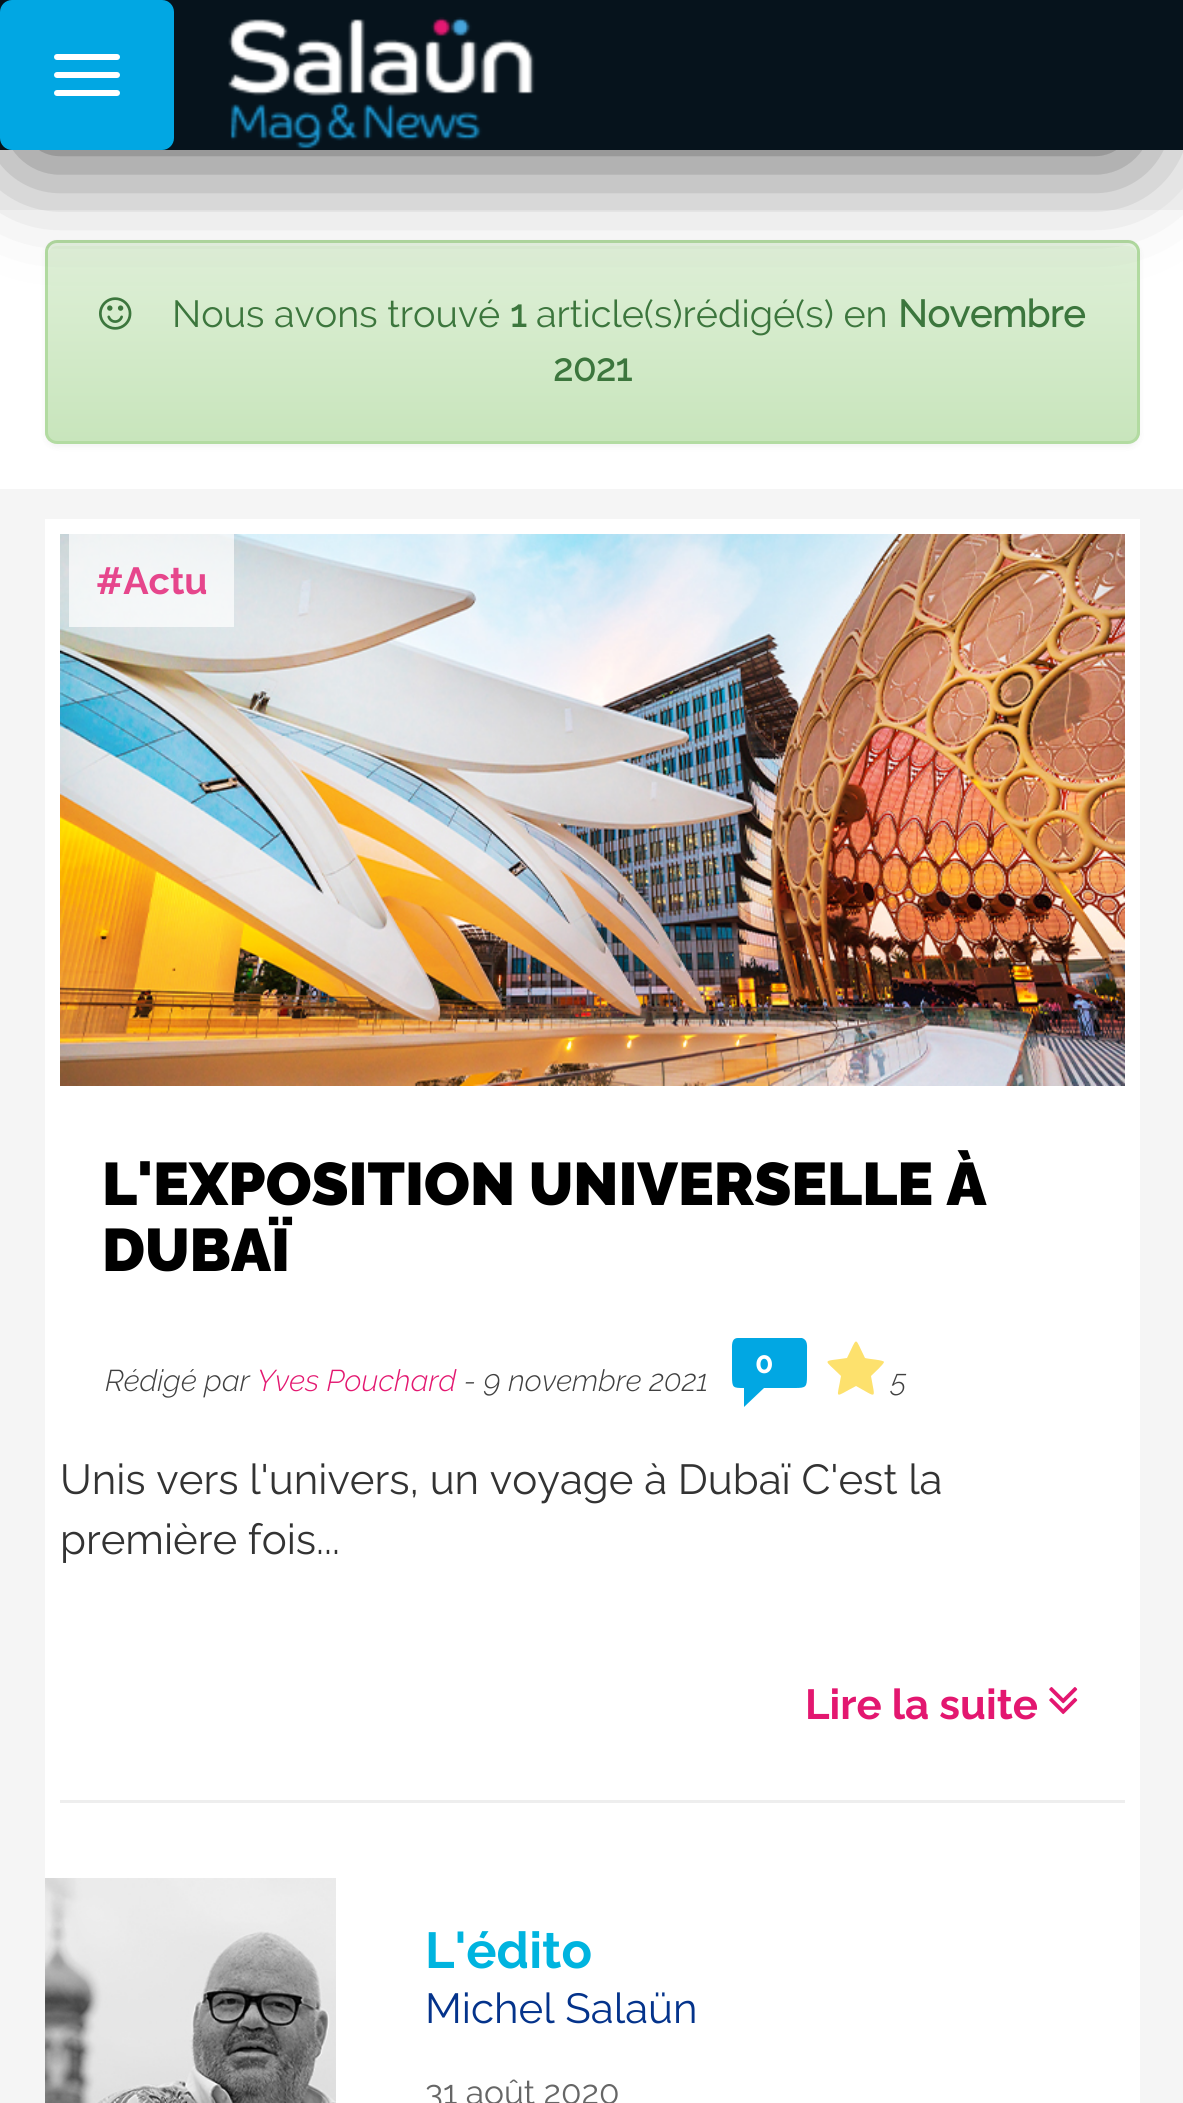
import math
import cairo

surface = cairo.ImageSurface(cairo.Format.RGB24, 1183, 2103)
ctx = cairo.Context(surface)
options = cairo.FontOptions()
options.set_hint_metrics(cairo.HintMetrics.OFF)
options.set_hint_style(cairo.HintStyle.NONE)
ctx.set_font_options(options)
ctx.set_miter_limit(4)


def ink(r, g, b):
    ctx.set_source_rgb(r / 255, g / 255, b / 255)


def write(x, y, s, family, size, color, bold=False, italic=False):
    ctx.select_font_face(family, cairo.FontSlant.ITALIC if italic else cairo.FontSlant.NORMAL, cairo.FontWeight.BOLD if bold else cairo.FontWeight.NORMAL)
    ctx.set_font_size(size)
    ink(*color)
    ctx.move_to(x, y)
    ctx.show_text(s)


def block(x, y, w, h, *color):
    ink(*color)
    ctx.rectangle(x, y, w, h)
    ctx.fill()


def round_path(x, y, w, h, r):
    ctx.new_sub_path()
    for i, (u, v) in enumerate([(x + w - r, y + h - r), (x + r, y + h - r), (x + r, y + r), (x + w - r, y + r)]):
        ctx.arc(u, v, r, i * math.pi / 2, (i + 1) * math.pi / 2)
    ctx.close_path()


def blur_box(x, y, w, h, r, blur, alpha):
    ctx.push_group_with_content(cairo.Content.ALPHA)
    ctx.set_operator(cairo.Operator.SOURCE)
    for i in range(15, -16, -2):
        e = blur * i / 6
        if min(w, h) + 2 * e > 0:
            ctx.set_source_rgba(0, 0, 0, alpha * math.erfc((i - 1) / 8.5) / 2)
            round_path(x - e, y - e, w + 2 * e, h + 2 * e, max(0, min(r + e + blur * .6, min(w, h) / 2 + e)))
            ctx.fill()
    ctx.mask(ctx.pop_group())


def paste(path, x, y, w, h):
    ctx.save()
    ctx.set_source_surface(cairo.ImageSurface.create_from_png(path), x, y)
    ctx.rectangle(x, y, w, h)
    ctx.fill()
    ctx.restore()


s1 = dict(family="Raleway", size=37.75, color=(60, 118, 61))
s2 = dict(family="Raleway", size=37.75, color=(60, 118, 61), bold=True)
s3 = dict(family="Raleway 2", size=37.75, color=(230, 70, 140), bold=True)
s4 = dict(family="Raleway Black", size=60, color=(0, 0, 0))
s5 = dict(family="Raleway 2", size=30, color=(255, 255, 255), bold=True)
s6 = dict(family="Raleway Light", size=30, color=(64, 64, 64), italic=True)
s7 = dict(family="Raleway Light", size=30, color=(227, 23, 112), italic=True)
s8 = dict(family="Raleway 2", size=42, color=(51, 51, 51))
s9 = dict(family="Raleway 2", size=42, color=(227, 23, 112), bold=True)
s10 = dict(family="Raleway 2", size=50.5, color=(0, 180, 223), bold=True)
s11 = dict(family="Raleway 2", size=42, color=(4, 51, 139))
s12 = dict(family="Raleway 2", size=33.5, color=(102, 102, 102))

ink(245, 245, 245)
ctx.paint()
block(0, 210, 1183, 279, 255, 255, 255)
ink(0, 0, 0)
blur_box(45, 243, 1095, 204, 12, 3, 0.05)
ctx.save()
round_path(45, 240, 1095, 204, 12)
ctx.clip()
gradient = cairo.LinearGradient(593, 243, 593, 441)
gradient.add_color_stop_rgba(0, 0.875, 0.941, 0.847, 1)
gradient.add_color_stop_rgba(1, 0.784, 0.898, 0.737, 1)
ctx.set_source(gradient)
ctx.rectangle(45, 243, 1095, 198)
ctx.fill()
ctx.restore()
ink(231, 244, 226)
ctx.new_path()
ctx.move_to(57, 246)
ctx.line_to(1128, 246)
ctx.curve_to(1133, 246, 1137, 250, 1137, 255)
ctx.line_to(1137, 252)
ctx.curve_to(1137, 247, 1133, 243, 1128, 243)
ctx.line_to(57, 243)
ctx.curve_to(52, 243, 48, 247, 48, 252)
ctx.line_to(48, 255)
ctx.curve_to(48, 250, 52, 246, 57, 246)
ctx.close_path()
ctx.fill()
round_path(46.5, 241.5, 1092, 201, 10.5)
ink(178, 219, 161)
ctx.set_line_width(3)
ctx.stroke()
paste("pic2.png", 99, 297, 33, 33)
ink(0, 0, 0)
blur_box(30, 87, 1095, 60, 0, 55.5, 0.75)
block(0, 0, 1183, 150, 6, 19, 28)
ink(1, 167, 227)
round_path(0, 0, 174, 150, 12)
ctx.fill()
ink(255, 255, 255)
round_path(54, 54, 66, 6, 3)
ctx.fill()
round_path(54, 72, 66, 6, 3)
ctx.fill()
round_path(54, 90, 66, 6, 3)
ctx.fill()
paste("pic1.png", 228, 17, 307, 132)
write(172, 327, "Nous avons trouvé", **s1)
write(510, 327, "1", **s2)
write(536, 327, "article(s)rédigé(s) en", **s1)
write(898, 327, "Novembre", **s2)
write(553, 381, "2021", **s2)
block(45, 519, 1095, 1359, 255, 255, 255)
paste("pic3.png", 60, 534, 1065, 552)
ctx.set_source_rgba(1, 1, 1, 0.7)
ctx.rectangle(69, 534, 165, 93)
ctx.fill()
write(96, 594, "#Actu", **s3)
write(102, 1205, "L'EXPOSITION UNIVERSELLE À", **s4)
write(102, 1271, "DUBAÏ", **s4)
ink(1, 167, 227)
ctx.new_path()
ctx.move_to(738, 1338)
ctx.line_to(802, 1338)
ctx.curve_to(808, 1340, 807, 1346, 807, 1351)
ctx.line_to(807, 1376)
ctx.curve_to(807, 1387, 806, 1388, 795, 1388)
ctx.line_to(764, 1388)
ctx.line_to(744, 1407)
ctx.line_to(744, 1388)
ctx.curve_to(733, 1388, 732, 1388, 732, 1376)
ctx.line_to(732, 1351)
ctx.curve_to(732, 1346, 731, 1338, 738, 1338)
ctx.close_path()
ctx.fill()
write(755, 1373, "0", **s5)
write(105, 1391, "Rédigé par", **s6)
write(257, 1391, "Yves Pouchard", **s7)
write(464, 1391, "- 9 novembre 2021", **s6)
ink(253, 225, 109)
ctx.new_path()
ctx.move_to(884, 1362)
ctx.curve_to(884, 1364, 873, 1374, 871, 1376)
ctx.curve_to(875, 1400, 878, 1398, 856, 1386)
ctx.curve_to(833, 1398, 837, 1400, 841, 1376)
ctx.curve_to(823, 1358, 821, 1362, 847, 1358)
ctx.curve_to(858, 1336, 854, 1336, 865, 1358)
ctx.curve_to(868, 1359, 884, 1360, 884, 1362)
ctx.close_path()
ctx.fill()
write(891, 1391, "5", **s6)
write(60, 1494, "Unis vers l'univers, un voyage à Dubaï C'est la", **s8)
write(60, 1554, "première fois...", **s8)
write(805, 1719, "Lire la suite", **s9)
paste("pic4.png", 1049, 1687, 29, 28)
block(60, 1800, 1065, 3, 238, 238, 238)
block(336, 1878, 804, 225, 255, 255, 255)
paste("pic5.png", 45, 1878, 291, 225)
write(425, 1968, "L'édito", **s10)
write(425, 2023, "Michel Salaün", **s11)
write(425, 2104, "31 août 2020", **s12)
surface.write_to_png("screenshot.png")
